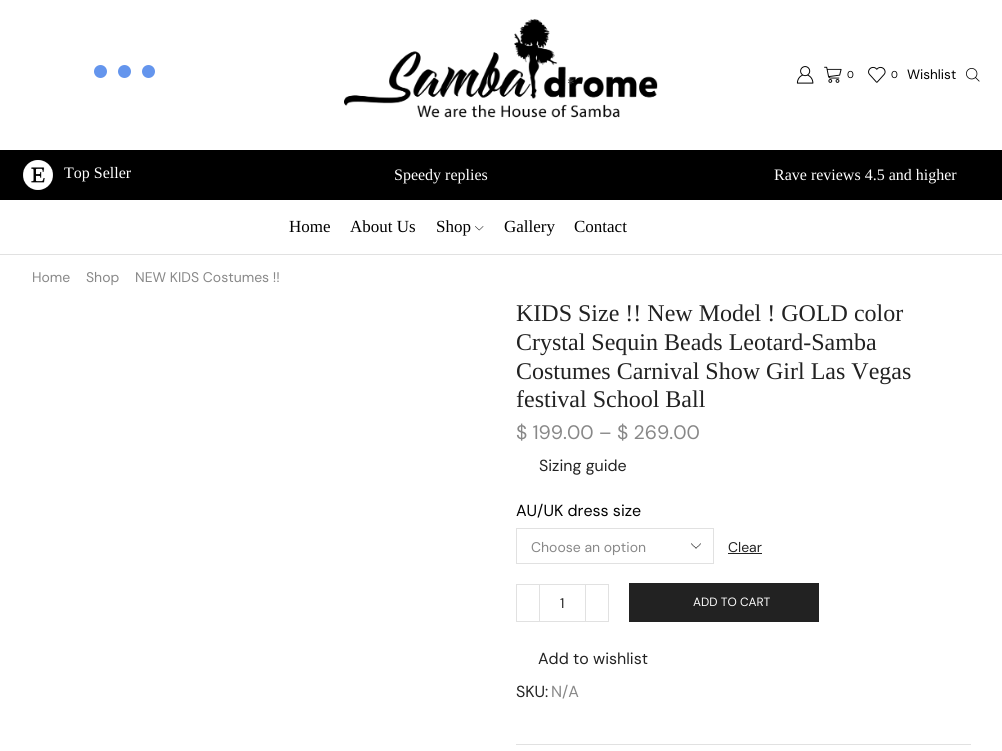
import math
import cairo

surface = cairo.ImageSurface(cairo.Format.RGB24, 1002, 751)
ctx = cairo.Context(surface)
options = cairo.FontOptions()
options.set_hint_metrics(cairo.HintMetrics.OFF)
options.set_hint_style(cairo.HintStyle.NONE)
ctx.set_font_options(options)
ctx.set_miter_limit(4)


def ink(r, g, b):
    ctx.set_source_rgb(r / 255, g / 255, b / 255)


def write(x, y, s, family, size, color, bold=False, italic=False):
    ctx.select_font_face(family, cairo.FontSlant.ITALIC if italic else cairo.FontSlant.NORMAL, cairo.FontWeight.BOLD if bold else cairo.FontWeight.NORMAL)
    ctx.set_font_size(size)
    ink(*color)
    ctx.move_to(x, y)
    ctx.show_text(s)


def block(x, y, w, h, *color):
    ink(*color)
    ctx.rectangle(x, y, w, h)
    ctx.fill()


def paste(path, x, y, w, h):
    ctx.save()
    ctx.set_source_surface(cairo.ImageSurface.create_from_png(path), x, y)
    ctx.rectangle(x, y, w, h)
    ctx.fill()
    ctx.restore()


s1 = dict(family="DM Sans", size=10, color=(0, 0, 0))
s2 = dict(family="DM Sans", size=13.5, color=(0, 0, 0))
s3 = dict(family="Tinos", size=16, color=(255, 255, 255))
s4 = dict(family="Tinos", size=17, color=(0, 0, 0))
s5 = dict(family="DM Sans", size=16, color=(64, 64, 64))
s6 = dict(family="DM Sans", size=14, color=(136, 136, 136))
s7 = dict(family="Tinos", size=24, color=(34, 34, 34))
s8 = dict(family="DM Sans", size=19.5, color=(136, 136, 136))
s9 = dict(family="DM Sans", size=16, color=(34, 34, 34))
s10 = dict(family="DM Sans", size=16, color=(0, 0, 0))
s11 = dict(family="DM Sans", size=14, color=(34, 34, 34))
s12 = dict(family="DM Sans", size=12, color=(255, 255, 255))
s13 = dict(family="DM Sans", size=16, color=(136, 136, 136))

ink(255, 255, 255)
ctx.paint()
ink(100, 149, 237)
ctx.arc(100.5, 71.5, 6.5, 0, 2 * math.pi)
ctx.fill()
ctx.arc(124.5, 71.5, 6.5, 0, 2 * math.pi)
ctx.fill()
ctx.arc(148.5, 71.5, 6.5, 0, 2 * math.pi)
ctx.fill()
paste("pic1.png", 344, 19, 314, 99)
paste("pic2.png", 796, 66, 18, 18)
paste("pic3.png", 824, 66, 18, 17)
write(847, 78, "0", **s1)
paste("pic4.png", 868, 66, 18, 17)
write(891, 78, "0", **s1)
write(907, 79, "Wishlist", **s2)
paste("pic5.png", 966, 68, 14, 14)
block(0, 150, 1002, 50, 0, 0, 0)
paste("pic6.png", 23, 160, 30, 30)
write(64, 178, "Top Seller", **s3)
write(394, 180, "Speedy replies", **s3)
write(774, 180, "Rave reviews 4.5 and higher", **s3)
block(0, 254, 1002, 1, 225, 225, 225)
write(289, 232, "Home", **s4)
write(350, 232, "About Us", **s4)
write(436, 232, "Shop", **s4)
paste("pic7.png", 475, 226, 9, 5)
write(504, 232, "Gallery", **s4)
write(574, 232, "Contact", **s4)
write(567, 90, "*", **s5)
write(32, 282, "Home", **s6)
write(86, 282, "Shop", **s6)
write(135, 282, "NEW KIDS Costumes !!", **s6)
write(516, 321, "KIDS Size !! New Model ! GOLD color", **s7)
write(516, 350, "Crystal Sequin Beads Leotard-Samba", **s7)
write(516, 379, "Costumes Carnival Show Girl Las Vegas", **s7)
write(516, 407, "festival School Ball", **s7)
write(516, 439, "$ 199.00 – $ 269.00", **s8)
write(539, 471, "Sizing guide", **s9)
write(516, 516, "AU/UK dress size", **s10)
paste("pic8.png", 691, 543, 10, 6)
ctx.rectangle(516.5, 528.5, 197, 35)
ink(225, 225, 225)
ctx.set_line_width(1)
ctx.stroke()
write(531, 552, "Choose an option", **s6)
write(728, 552, "Clear", **s11)
block(728, 553, 34, 1, 34, 34, 34)
ctx.rectangle(516.5, 584.5, 23, 37)
ink(225, 225, 225)
ctx.stroke()
block(540, 584, 45, 1, 225, 225, 225)
block(540, 621, 45, 1, 225, 225, 225)
write(560, 608, "1", **s11)
ctx.rectangle(585.5, 584.5, 23, 37)
ink(225, 225, 225)
ctx.stroke()
block(629, 583, 190, 39, 34, 34, 34)
write(693, 606, "ADD TO CART", **s12)
write(538, 664, "Add to wishlist", **s9)
write(516, 697, "SKU:", **s9)
write(551, 697, "N/A", **s13)
block(516, 744, 455, 1, 225, 225, 225)
surface.write_to_png("screenshot.png")
